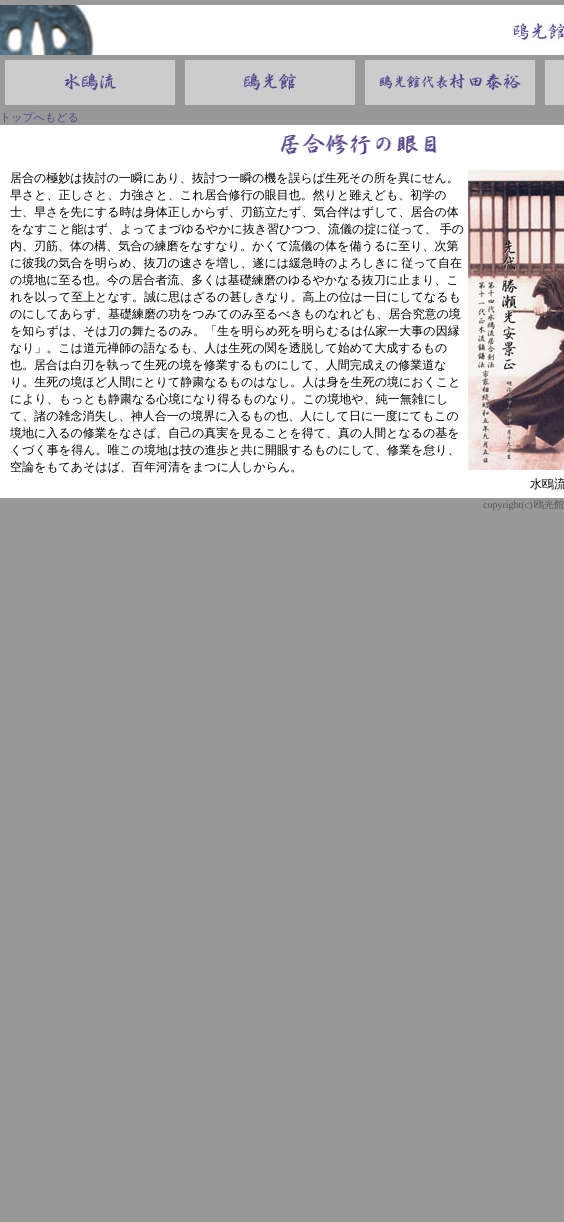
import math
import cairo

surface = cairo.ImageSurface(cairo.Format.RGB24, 564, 1222)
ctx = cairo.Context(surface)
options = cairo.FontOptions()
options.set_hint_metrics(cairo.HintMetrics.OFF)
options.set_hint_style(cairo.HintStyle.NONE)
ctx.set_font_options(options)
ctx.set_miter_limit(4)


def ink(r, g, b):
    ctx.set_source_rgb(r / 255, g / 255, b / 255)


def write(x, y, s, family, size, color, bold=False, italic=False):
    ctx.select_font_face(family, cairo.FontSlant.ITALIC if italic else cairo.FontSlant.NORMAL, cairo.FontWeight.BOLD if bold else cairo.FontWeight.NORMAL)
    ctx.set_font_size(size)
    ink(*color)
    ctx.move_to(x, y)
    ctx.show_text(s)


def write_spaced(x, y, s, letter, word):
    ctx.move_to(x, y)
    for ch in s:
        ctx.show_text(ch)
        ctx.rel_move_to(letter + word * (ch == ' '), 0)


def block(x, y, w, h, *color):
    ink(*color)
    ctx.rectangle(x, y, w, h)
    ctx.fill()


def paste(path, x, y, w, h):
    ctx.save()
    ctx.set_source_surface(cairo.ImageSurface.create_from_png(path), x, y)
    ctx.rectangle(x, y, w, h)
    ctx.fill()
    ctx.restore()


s1 = dict(family="WenQuanYi Zen Hei Medium", size=11, color=(84, 69, 139))
s2 = dict(family="WenQuanYi Zen Hei Medium", size=12, color=(0, 0, 0))
s3 = dict(family="Liberation Serif", size=10, color=(85, 85, 85))
s4 = dict(family="WenQuanYi Zen Hei Medium", size=10, color=(85, 85, 85))

ink(153, 153, 153)
ctx.paint()
paste("pic1.png", 0, 5, 564, 50)
paste("pic2.png", 5, 60, 170, 45)
paste("pic3.png", 185, 60, 170, 45)
paste("pic4.png", 365, 60, 170, 45)
block(545, 60, 19, 45, 204, 204, 204)
write(0, 121, "トップへもどる", **s1)
block(0, 125, 564, 373, 255, 255, 255)
paste("pic5.png", 280, 133, 157, 22)
write(10, 182, "居合の極妙は抜討の一瞬にあり、抜討つ一瞬の機を誤らば生死その所を異にせん。", **s2)
paste("pic6.png", 468, 170, 96, 300)
write(10, 199, "早さと、正しさと、力強さと、これ居合修行の眼目也。然りと雖えども、初学の", **s2)
write(10, 216, "士、早さを先にする時は身体正しからず、刃筋立たず、気合伴はずして、居合の体", **s2)
write_spaced(10, 233, "をなすこと能はず、よってまづゆるやかに抜き習ひつつ、流儀の掟に従って、 手の", 0, -1)
write(10, 250, "内、刃筋、体の構、気合の練磨をなすなり。かくて流儀の体を備うるに至り、次第", **s2)
write_spaced(10, 267, "に彼我の気合を明らめ、抜刀の速さを増し、遂には緩急時のよろしきに 従って自在", 0, -1)
write(10, 284, "の境地に至る也。今の居合者流、多くは基礎練磨のゆるやかなる抜刀に止まり、こ", **s2)
write(10, 301, "れを以って至上となす。誠に思はざるの甚しきなり。高上の位は一日にしてなるも", **s2)
write(10, 318, "のにしてあらず、基礎練磨の功をつみてのみ至るべきものなれども、居合究意の境", **s2)
write(10, 335, "を知らずは、そは刀の舞たるのみ。「生を明らめ死を明らむるは仏家一大事の因縁", **s2)
write(10, 352, "なり」。こは道元禅師の語なるも、人は生死の関を透脱して始めて大成するもの", **s2)
write(10, 369, "也。居合は白刃を執って生死の境を修業するものにして、人間完成えの修業道な", **s2)
write(10, 386, "り。生死の境ほど人間にとりて静粛なるものはなし。人は身を生死の境におくこと", **s2)
write(10, 403, "により、もっとも静粛なる心境になり得るものなり。この境地や、純一無雑にし", **s2)
write(10, 420, "て、諸の雑念消失し、神人合一の境界に入るもの也、人にして日に一度にてもこの", **s2)
write(10, 437, "境地に入るの修業をなさば、自己の真実を見ることを得て、真の人間となるの基を", **s2)
write(10, 454, "くづく事を得ん。唯この境地は技の進歩と共に開眼するものにして、修業を怠り、", **s2)
write(10, 471, "空論をもてあそはば、百年河清をまつに人しからん。", **s2)
write(530, 488, "水鴎流", **s2)
write(483, 508, "copyright(c)", **s3)
write(534, 508, "鴎光館", **s4)
surface.write_to_png("screenshot.png")
